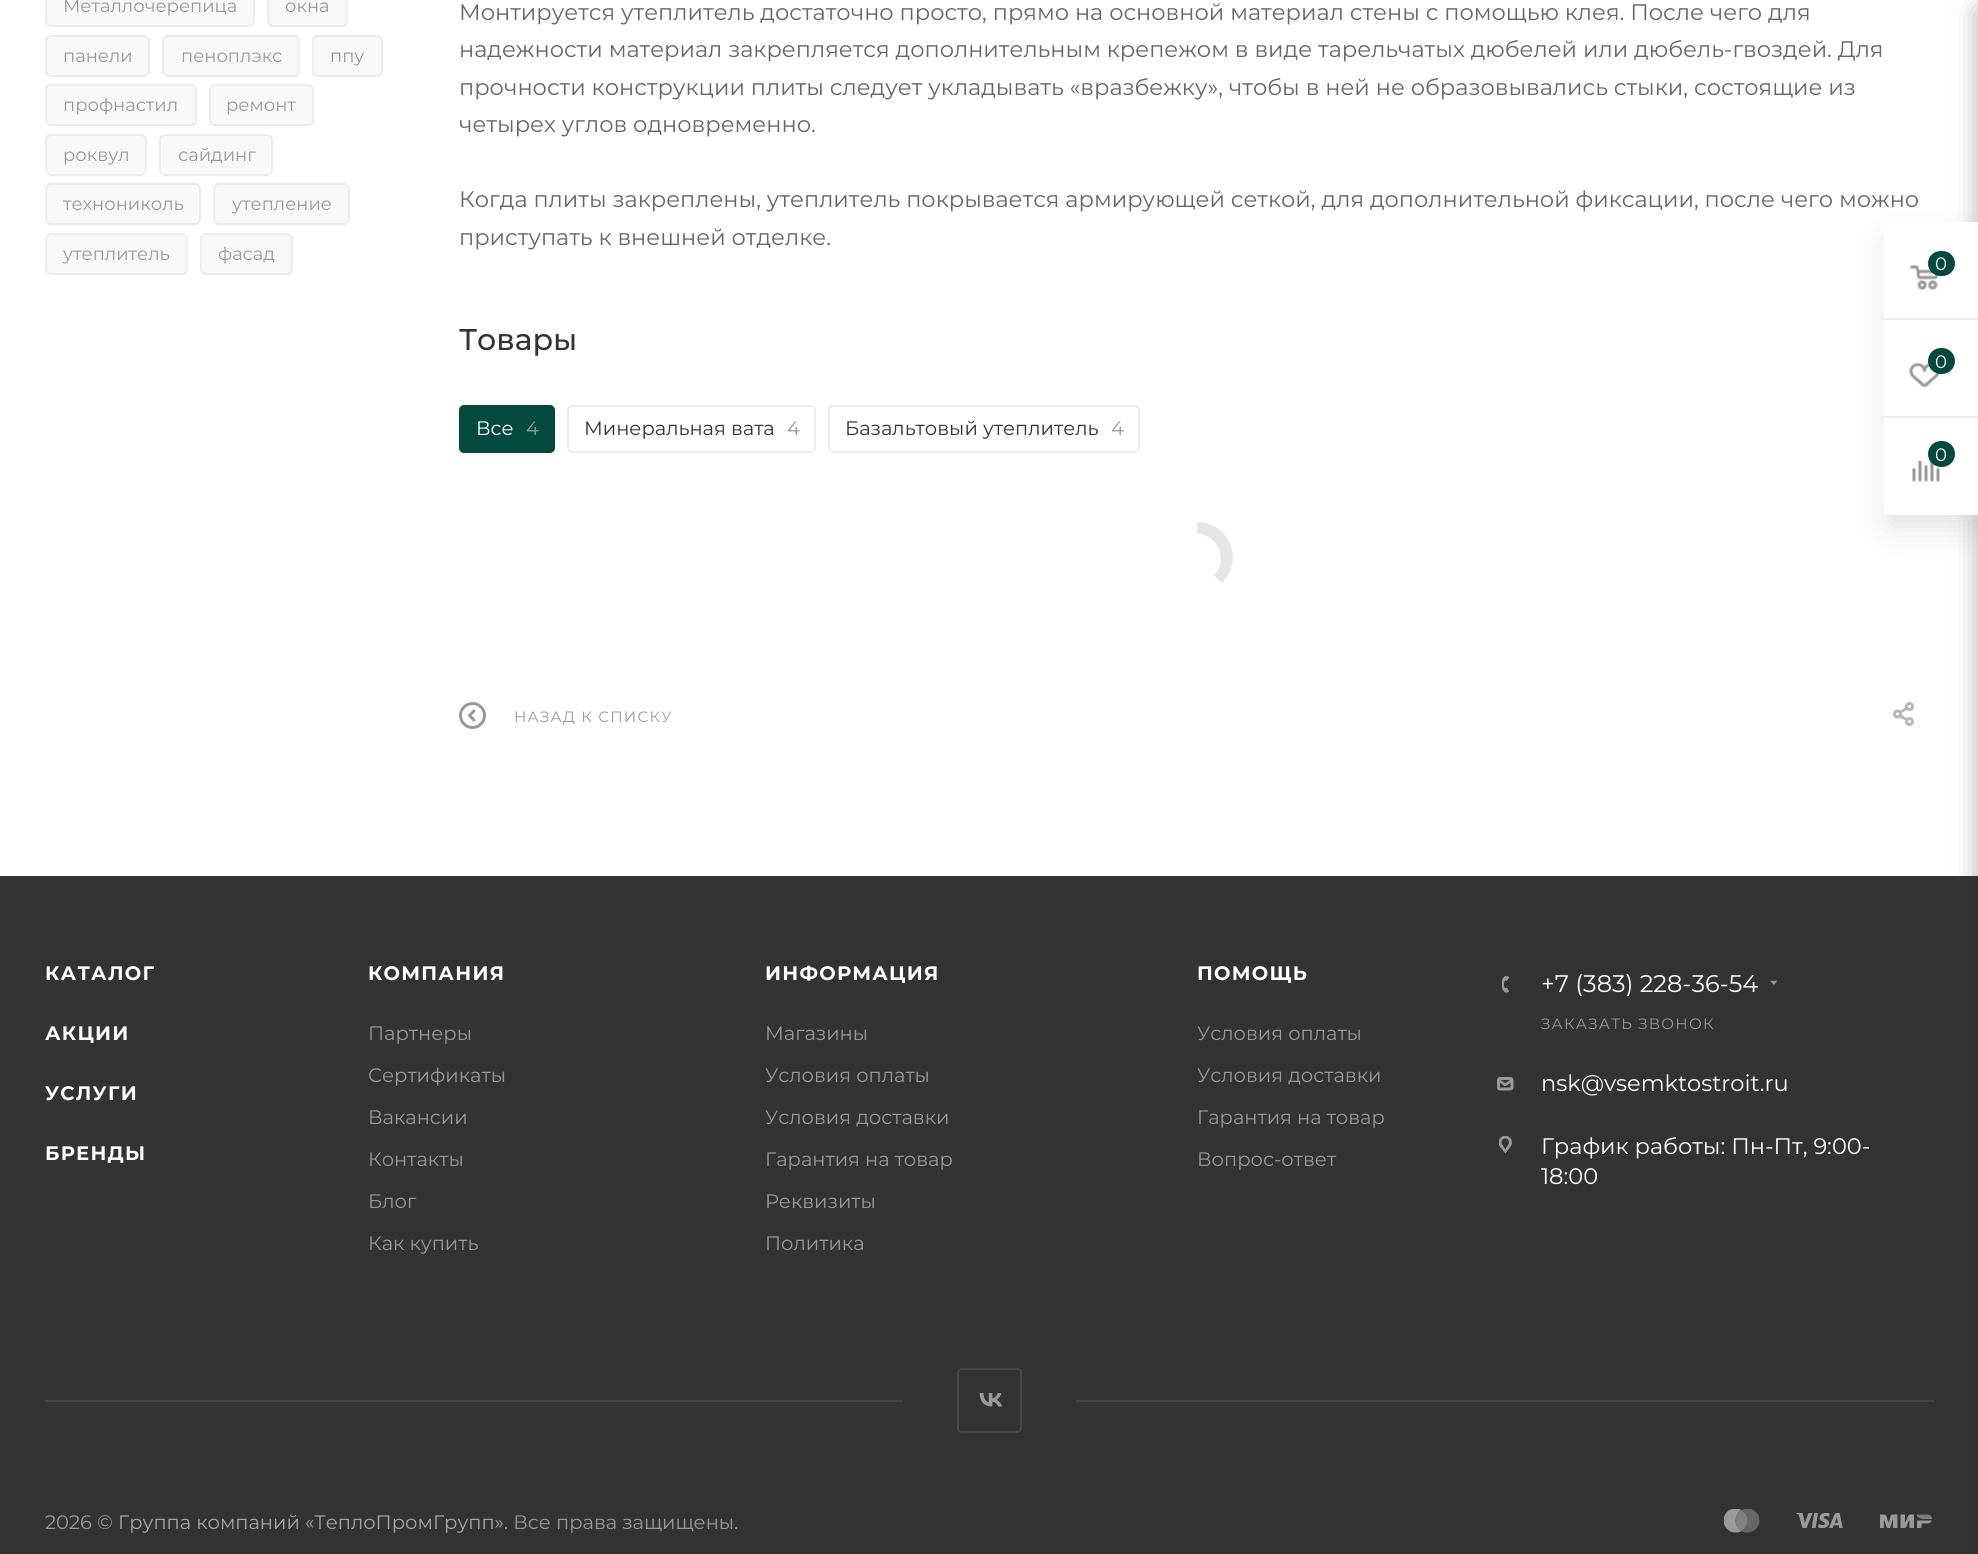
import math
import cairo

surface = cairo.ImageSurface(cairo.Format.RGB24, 1978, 1554)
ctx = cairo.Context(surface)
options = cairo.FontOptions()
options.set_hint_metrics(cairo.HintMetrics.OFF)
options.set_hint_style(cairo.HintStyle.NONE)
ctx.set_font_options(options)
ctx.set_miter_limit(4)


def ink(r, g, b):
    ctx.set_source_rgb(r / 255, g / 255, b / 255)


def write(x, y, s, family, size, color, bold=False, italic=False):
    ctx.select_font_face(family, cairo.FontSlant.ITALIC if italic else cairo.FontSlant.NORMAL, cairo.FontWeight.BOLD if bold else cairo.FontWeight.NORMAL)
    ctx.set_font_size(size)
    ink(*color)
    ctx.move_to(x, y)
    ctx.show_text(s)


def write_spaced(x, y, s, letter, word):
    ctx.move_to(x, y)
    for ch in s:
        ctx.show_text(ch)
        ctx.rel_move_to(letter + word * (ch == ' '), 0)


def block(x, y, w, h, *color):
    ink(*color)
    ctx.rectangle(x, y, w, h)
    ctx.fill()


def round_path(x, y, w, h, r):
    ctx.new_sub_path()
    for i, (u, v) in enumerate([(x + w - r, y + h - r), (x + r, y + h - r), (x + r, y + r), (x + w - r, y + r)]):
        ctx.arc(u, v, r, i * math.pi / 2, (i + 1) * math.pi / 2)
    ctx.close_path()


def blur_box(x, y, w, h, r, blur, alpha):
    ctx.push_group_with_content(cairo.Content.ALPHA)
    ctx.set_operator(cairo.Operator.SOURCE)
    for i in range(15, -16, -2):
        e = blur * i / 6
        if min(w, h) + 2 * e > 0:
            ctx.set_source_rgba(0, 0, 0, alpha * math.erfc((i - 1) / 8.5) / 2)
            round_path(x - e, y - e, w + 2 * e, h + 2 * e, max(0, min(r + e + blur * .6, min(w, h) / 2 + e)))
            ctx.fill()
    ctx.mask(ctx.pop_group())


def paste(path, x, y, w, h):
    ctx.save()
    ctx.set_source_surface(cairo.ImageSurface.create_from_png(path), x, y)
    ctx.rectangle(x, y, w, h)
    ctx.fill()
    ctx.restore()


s1 = dict(family="Montserrat", size=18, color=(153, 153, 153))
s2 = dict(family="Montserrat", size=22.5, color=(102, 102, 102))
s3 = dict(family="Montserrat Medium", size=30, color=(51, 51, 51))
s4 = dict(family="Montserrat", size=19.5, color=(255, 255, 255))
s5 = dict(family="Montserrat", size=19.5, color=(129, 164, 159))
s6 = dict(family="Montserrat", size=19.5, color=(51, 51, 51))
s7 = dict(family="Montserrat", size=19.5, color=(153, 153, 153))
s8 = dict(family="Montserrat", size=18, color=(255, 255, 255))
s9 = dict(family="Montserrat", size=24, color=(255, 255, 255))
s10 = dict(family="Montserrat", size=22.5, color=(255, 255, 255))
s11 = dict(family="Montserrat", size=19.5, color=(166, 166, 166))

ink(255, 255, 255)
ctx.paint()
ink(248, 248, 248)
round_path(46, -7, 208, 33, 5)
ctx.fill_preserve()
ink(236, 236, 236)
ctx.stroke()
write(63, 12, "Металлочерепица", **s1)
ink(248, 248, 248)
round_path(268, -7, 79, 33, 5)
ctx.fill_preserve()
ink(236, 236, 236)
ctx.stroke()
write(285, 12, "окна", **s1)
ink(248, 248, 248)
round_path(46, 36, 103, 40, 5)
ctx.fill_preserve()
ink(236, 236, 236)
ctx.stroke()
write(63, 62, "панели", **s1)
ink(248, 248, 248)
round_path(163, 36, 136, 40, 5)
ctx.fill_preserve()
ink(236, 236, 236)
ctx.stroke()
write(181, 62, "пеноплэкс", **s1)
ink(248, 248, 248)
round_path(313, 36, 69, 40, 5)
ctx.fill_preserve()
ink(236, 236, 236)
ctx.stroke()
write(330, 62, "ппу", **s1)
ink(248, 248, 248)
round_path(46, 85, 150, 40, 5)
ctx.fill_preserve()
ink(236, 236, 236)
ctx.stroke()
write(63, 111, "профнастил", **s1)
ink(248, 248, 248)
round_path(210, 85, 103, 40, 5)
ctx.fill_preserve()
ink(236, 236, 236)
ctx.stroke()
write(226, 111, "ремонт", **s1)
ink(248, 248, 248)
round_path(46, 135, 100, 40, 5)
ctx.fill_preserve()
ink(236, 236, 236)
ctx.stroke()
write(63, 161, "роквул", **s1)
ink(248, 248, 248)
round_path(160, 135, 112, 40, 5)
ctx.fill_preserve()
ink(236, 236, 236)
ctx.stroke()
write(178, 161, "сайдинг", **s1)
ink(248, 248, 248)
round_path(46, 184, 154, 40, 5)
ctx.fill_preserve()
ink(236, 236, 236)
ctx.stroke()
write(63, 210, "технониколь", **s1)
ink(248, 248, 248)
round_path(214, 184, 135, 40, 5)
ctx.fill_preserve()
ink(236, 236, 236)
ctx.stroke()
write(232, 210, "утепление", **s1)
ink(248, 248, 248)
round_path(46, 234, 141, 40, 5)
ctx.fill_preserve()
ink(236, 236, 236)
ctx.stroke()
write(63, 260, "утеплитель", **s1)
ink(248, 248, 248)
round_path(201, 234, 91, 40, 5)
ctx.fill_preserve()
ink(236, 236, 236)
ctx.stroke()
write(218, 260, "фасад", **s1)
write(459, 20, "Монтируется утеплитель достаточно просто, прямо на основной материал стены с помощью клея. После чего для", **s2)
write(459, 57, "надежности материал закрепляется дополнительным крепежом в виде тарельчатых дюбелей или дюбель-гвоздей. Для", **s2)
write(459, 95, "прочности конструкции плиты следует укладывать «вразбежку», чтобы в ней не образовывались стыки, состоящие из", **s2)
write(459, 132, "четырех углов одновременно.", **s2)
write(459, 207, "Когда плиты закреплены, утеплитель покрывается армирующей сеткой, для дополнительной фиксации, после чего можно", **s2)
write(459, 245, "приступать к внешней отделке.", **s2)
write(459, 350, "Товары", **s3)
ink(3, 73, 62)
round_path(460, 406, 94, 46, 4)
ctx.fill_preserve()
ctx.stroke()
write(476, 435, "Все", **s4)
write(526, 435, "4", **s5)
round_path(568, 406, 247, 46, 4)
ink(236, 236, 236)
ctx.stroke()
write(584, 435, "Минеральная вата", **s6)
write(787, 435, "4", **s7)
round_path(829, 406, 310, 46, 4)
ink(236, 236, 236)
ctx.stroke()
write(845, 435, "Базальтовый утеплитель", **s6)
write(1111, 435, "4", **s7)
ink(230, 230, 230)
ctx.new_path()
ctx.move_to(1197, 522)
ctx.curve_to(1229, 522, 1245, 561, 1222, 583)
ctx.line_to(1214, 575)
ctx.curve_to(1229, 560, 1218, 534, 1197, 534)
ctx.close_path()
ctx.fill()
paste("pic1.png", 459, 702, 27, 27)
ctx.set_font_size(15)
ink(153, 153, 153)
write_spaced(514, 722, "НАЗАД К СПИСКУ", 1.25, 0)
paste("pic2.png", 1893, 702, 21, 24)
block(0, 876, 1978, 678, 51, 51, 51)
ink(44, 44, 44)
blur_box(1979, 9, 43, 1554, 3, 13.5, 0.4)
ink(0, 0, 0)
blur_box(1884, 237, 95, 293, 6, 15, 0.1)
ink(255, 255, 255)
ctx.new_path()
ctx.move_to(1890, 222)
ctx.line_to(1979, 222)
ctx.line_to(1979, 515)
ctx.line_to(1890, 515)
ctx.curve_to(1886.5, 515, 1884, 512.5, 1884, 509)
ctx.line_to(1884, 228)
ctx.curve_to(1884, 224.5, 1886.5, 222, 1890, 222)
ctx.close_path()
ctx.fill()
block(1884, 318, 94, 2, 236, 236, 236)
paste("pic3.png", 1909, 265, 30, 25)
ink(3, 73, 62)
round_path(1928, 251, 27, 25, 12.5)
ctx.fill()
write(1935, 270, "0", **s8)
block(1884, 416, 94, 2, 236, 236, 236)
paste("pic4.png", 1909, 362, 31, 26)
ink(3, 73, 62)
round_path(1928, 348, 27, 26, 13)
ctx.fill()
write(1935, 368, "0", **s8)
paste("pic5.png", 1912, 460, 28, 22)
ink(3, 73, 62)
round_path(1928, 441, 27, 26, 13)
ctx.fill()
write(1935, 461, "0", **s8)
ctx.select_font_face("Montserrat", cairo.FontSlant.NORMAL, cairo.FontWeight.BOLD)
ctx.set_font_size(19.5)
write_spaced(45, 980, "КАТАЛОГ", 1.25, 0)
write_spaced(45, 1040, "АКЦИИ", 1.25, 0)
write_spaced(45, 1100, "УСЛУГИ", 1.25, 0)
write_spaced(45, 1160, "БРЕНДЫ", 1.25, 0)
write_spaced(368, 980, "КОМПАНИЯ", 1.25, 0)
write(368, 1040, "Партнеры", **s7)
write(368, 1082, "Сертификаты", **s7)
write(368, 1124, "Вакансии", **s7)
write(368, 1166, "Контакты", **s7)
write(368, 1208, "Блог", **s7)
write(368, 1250, "Как купить", **s7)
ctx.select_font_face("Montserrat", cairo.FontSlant.NORMAL, cairo.FontWeight.BOLD)
ink(255, 255, 255)
write_spaced(765, 980, "ИНФОРМАЦИЯ", 1.25, 0)
write(765, 1040, "Магазины", **s7)
write(765, 1082, "Условия оплаты", **s7)
write(765, 1124, "Условия доставки", **s7)
write(765, 1166, "Гарантия на товар", **s7)
write(765, 1208, "Реквизиты", **s7)
write(765, 1250, "Политика", **s7)
ctx.select_font_face("Montserrat", cairo.FontSlant.NORMAL, cairo.FontWeight.BOLD)
ink(255, 255, 255)
write_spaced(1197, 980, "ПОМОЩЬ", 1.25, 0)
write(1197, 1040, "Условия оплаты", **s7)
write(1197, 1082, "Условия доставки", **s7)
write(1197, 1124, "Гарантия на товар", **s7)
write(1197, 1166, "Вопрос-ответ", **s7)
paste("pic6.png", 1501, 976, 8, 17)
ctx.save()
ctx.rectangle(1497, 972, 281, 24)
ctx.clip()
write(1541, 992, "+7 (383) 228-36-54", **s9)
ctx.restore()
paste("pic7.png", 1770, 980, 7, 5)
ctx.set_font_size(15)
write_spaced(1541, 1029, "ЗАКАЗАТЬ ЗВОНОК", 1.25, 0)
paste("pic8.png", 1497, 1077, 17, 14)
write(1541, 1091, "nsk@vsemktostroit.ru", **s10)
paste("pic9.png", 1499, 1136, 13, 18)
write(1541, 1154, "График работы: Пн-Пт, 9:00-", **s10)
write(1541, 1184, "18:00", **s10)
block(45, 1400, 1889, 2, 67, 67, 67)
block(903, 1400, 173, 2, 51, 51, 51)
paste("pic10.png", 979, 1393, 24, 14)
round_path(958, 1369, 63, 63, 4)
ink(71, 71, 71)
ctx.stroke()
write(45, 1529, "2026 ©", **s7)
write(118, 1529, "Группа компаний «ТеплоПромГрупп»", **s11)
write(504, 1529, ". Все права защищены.", **s7)
paste("pic11.png", 1724, 1509, 36, 24)
paste("pic12.png", 1796, 1513, 47, 15)
paste("pic13.png", 1880, 1514, 52, 14)
surface.write_to_png("screenshot.png")
